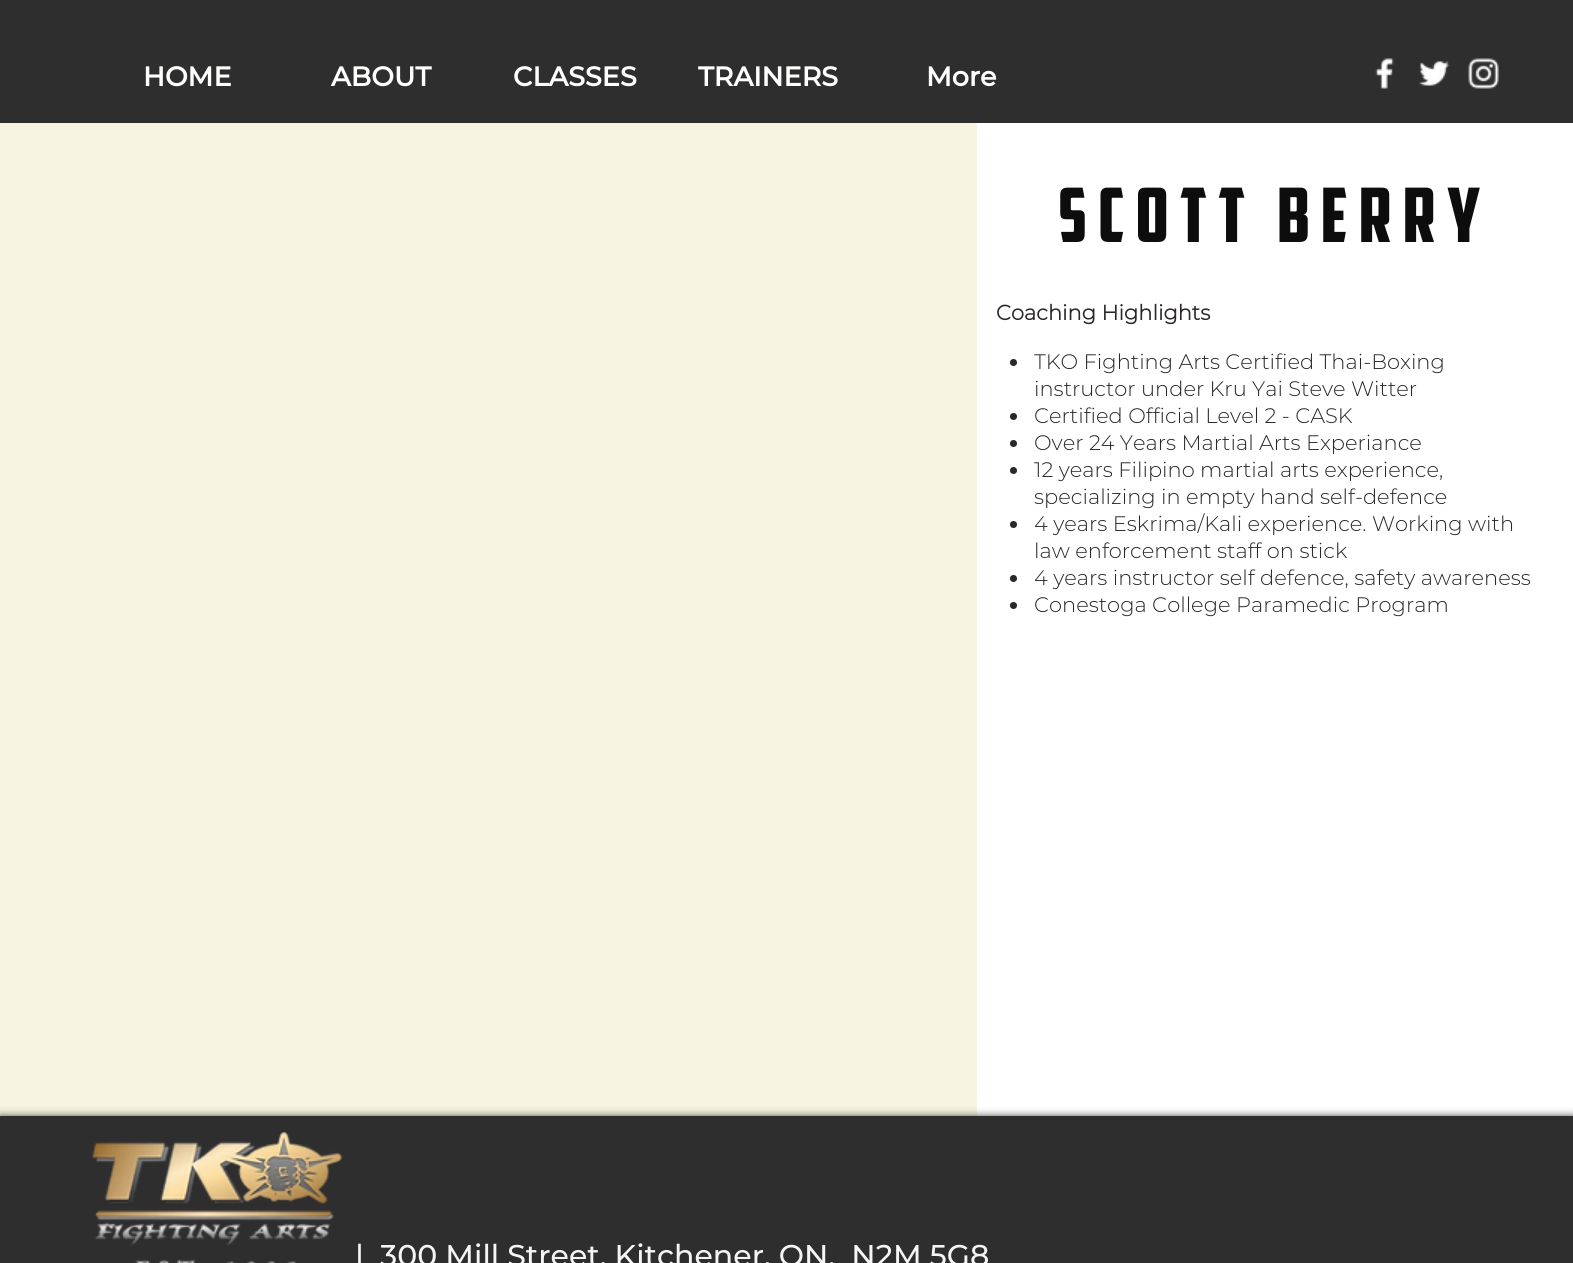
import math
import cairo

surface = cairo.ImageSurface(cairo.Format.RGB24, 1573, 1263)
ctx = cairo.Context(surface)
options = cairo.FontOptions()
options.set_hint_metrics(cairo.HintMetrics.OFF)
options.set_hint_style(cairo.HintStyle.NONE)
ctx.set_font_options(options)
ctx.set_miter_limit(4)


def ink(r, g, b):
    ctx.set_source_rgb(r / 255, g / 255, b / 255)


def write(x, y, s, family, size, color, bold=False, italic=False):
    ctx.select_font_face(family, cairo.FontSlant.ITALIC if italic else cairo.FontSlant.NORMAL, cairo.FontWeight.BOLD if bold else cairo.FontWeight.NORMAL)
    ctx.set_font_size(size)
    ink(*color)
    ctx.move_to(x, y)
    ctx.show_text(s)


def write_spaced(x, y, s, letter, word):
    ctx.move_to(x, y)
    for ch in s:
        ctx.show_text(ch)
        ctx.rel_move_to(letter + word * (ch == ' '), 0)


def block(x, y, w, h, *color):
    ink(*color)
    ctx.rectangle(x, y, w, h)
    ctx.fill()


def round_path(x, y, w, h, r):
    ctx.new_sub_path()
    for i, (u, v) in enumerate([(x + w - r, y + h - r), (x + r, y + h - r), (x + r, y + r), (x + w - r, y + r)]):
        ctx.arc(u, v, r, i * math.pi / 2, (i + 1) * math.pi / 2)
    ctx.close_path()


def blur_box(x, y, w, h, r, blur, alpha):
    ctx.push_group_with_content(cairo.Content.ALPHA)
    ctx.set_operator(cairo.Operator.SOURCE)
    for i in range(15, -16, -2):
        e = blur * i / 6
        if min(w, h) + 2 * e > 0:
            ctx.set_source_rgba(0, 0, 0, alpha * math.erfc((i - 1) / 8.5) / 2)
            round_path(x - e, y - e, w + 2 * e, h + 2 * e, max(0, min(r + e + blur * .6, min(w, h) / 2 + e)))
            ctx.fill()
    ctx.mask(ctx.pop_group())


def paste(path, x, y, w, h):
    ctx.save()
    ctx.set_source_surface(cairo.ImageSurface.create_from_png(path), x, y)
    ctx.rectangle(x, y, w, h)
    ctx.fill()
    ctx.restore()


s1 = dict(family="Montserrat", size=27, color=(255, 255, 254), bold=True)
s2 = dict(family="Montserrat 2", size=21, color=(43, 39, 42), bold=True)
s3 = dict(family="Montserrat Light", size=21, color=(43, 39, 42))
s4 = dict(family="Montserrat Medium", size=30, color=(245, 245, 245))

ink(47, 46, 46)
ctx.paint()
write(143, 86, "HOME", **s1)
write(331, 86, "ABOUT", **s1)
write(513, 86, "CLASSES", **s1)
write(698, 86, "TRAINERS", **s1)
write(926, 86, "More", **s1)
paste("pic1.png", 1375, 58, 19, 31)
paste("pic2.png", 1419, 61, 31, 26)
paste("pic3.png", 1468, 58, 31, 31)
block(0, 123, 977, 993, 247, 245, 225)
block(977, 123, 596, 993, 255, 255, 255)
ctx.select_font_face("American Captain")
ctx.set_font_size(75)
ink(13, 13, 13)
write_spaced(1058, 242, "Scott Berry", 11.25, 0)
write(996, 320, "Coaching Highlights", **s2)
ctx.new_path()
ctx.arc(1013.5, 362.5, 3.5, 0, 2 * math.pi)
ctx.fill()
write(1034, 369, "TKO Fighting Arts Certified Thai-Boxing", **s3)
write(1034, 396, "instructor under Kru Yai Steve Witter", **s3)
ctx.new_path()
ctx.arc(1013.5, 416.5, 3.5, 0, 2 * math.pi)
ctx.fill()
write(1034, 423, "Certified Official Level 2 - CASK", **s3)
ctx.new_path()
ctx.arc(1013.5, 443.5, 3.5, 0, 2 * math.pi)
ctx.fill()
write(1034, 450, "Over 24 Years Martial Arts Experiance", **s3)
ctx.new_path()
ctx.arc(1013.5, 470.5, 3.5, 0, 2 * math.pi)
ctx.fill()
write(1034, 477, "12 years Filipino martial arts experience,", **s3)
write(1034, 504, "specializing in empty hand self-defence", **s3)
ctx.new_path()
ctx.arc(1013.5, 524.5, 3.5, 0, 2 * math.pi)
ctx.fill()
write(1034, 531, "4 years Eskrima/Kali experience. Working with", **s3)
write(1034, 558, "law enforcement staff on stick", **s3)
ctx.new_path()
ctx.arc(1013.5, 578.5, 3.5, 0, 2 * math.pi)
ctx.fill()
write(1034, 585, "4 years instructor self defence, safety awareness", **s3)
ctx.new_path()
ctx.arc(1013.5, 605.5, 3.5, 0, 2 * math.pi)
ctx.fill()
write(1034, 612, "Conestoga College Paramedic Program", **s3)
ink(0, 0, 0)
blur_box(0, 1116, 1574, 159, 0, 4, 0.7)
block(0, 1116, 1573, 147, 47, 46, 46)
paste("pic4.png", 91, 1131, 252, 132)
write(355, 1266, "|  300 Mill Street, Kitchener, ON,  N2M 5G8", **s4)
surface.write_to_png("screenshot.png")
